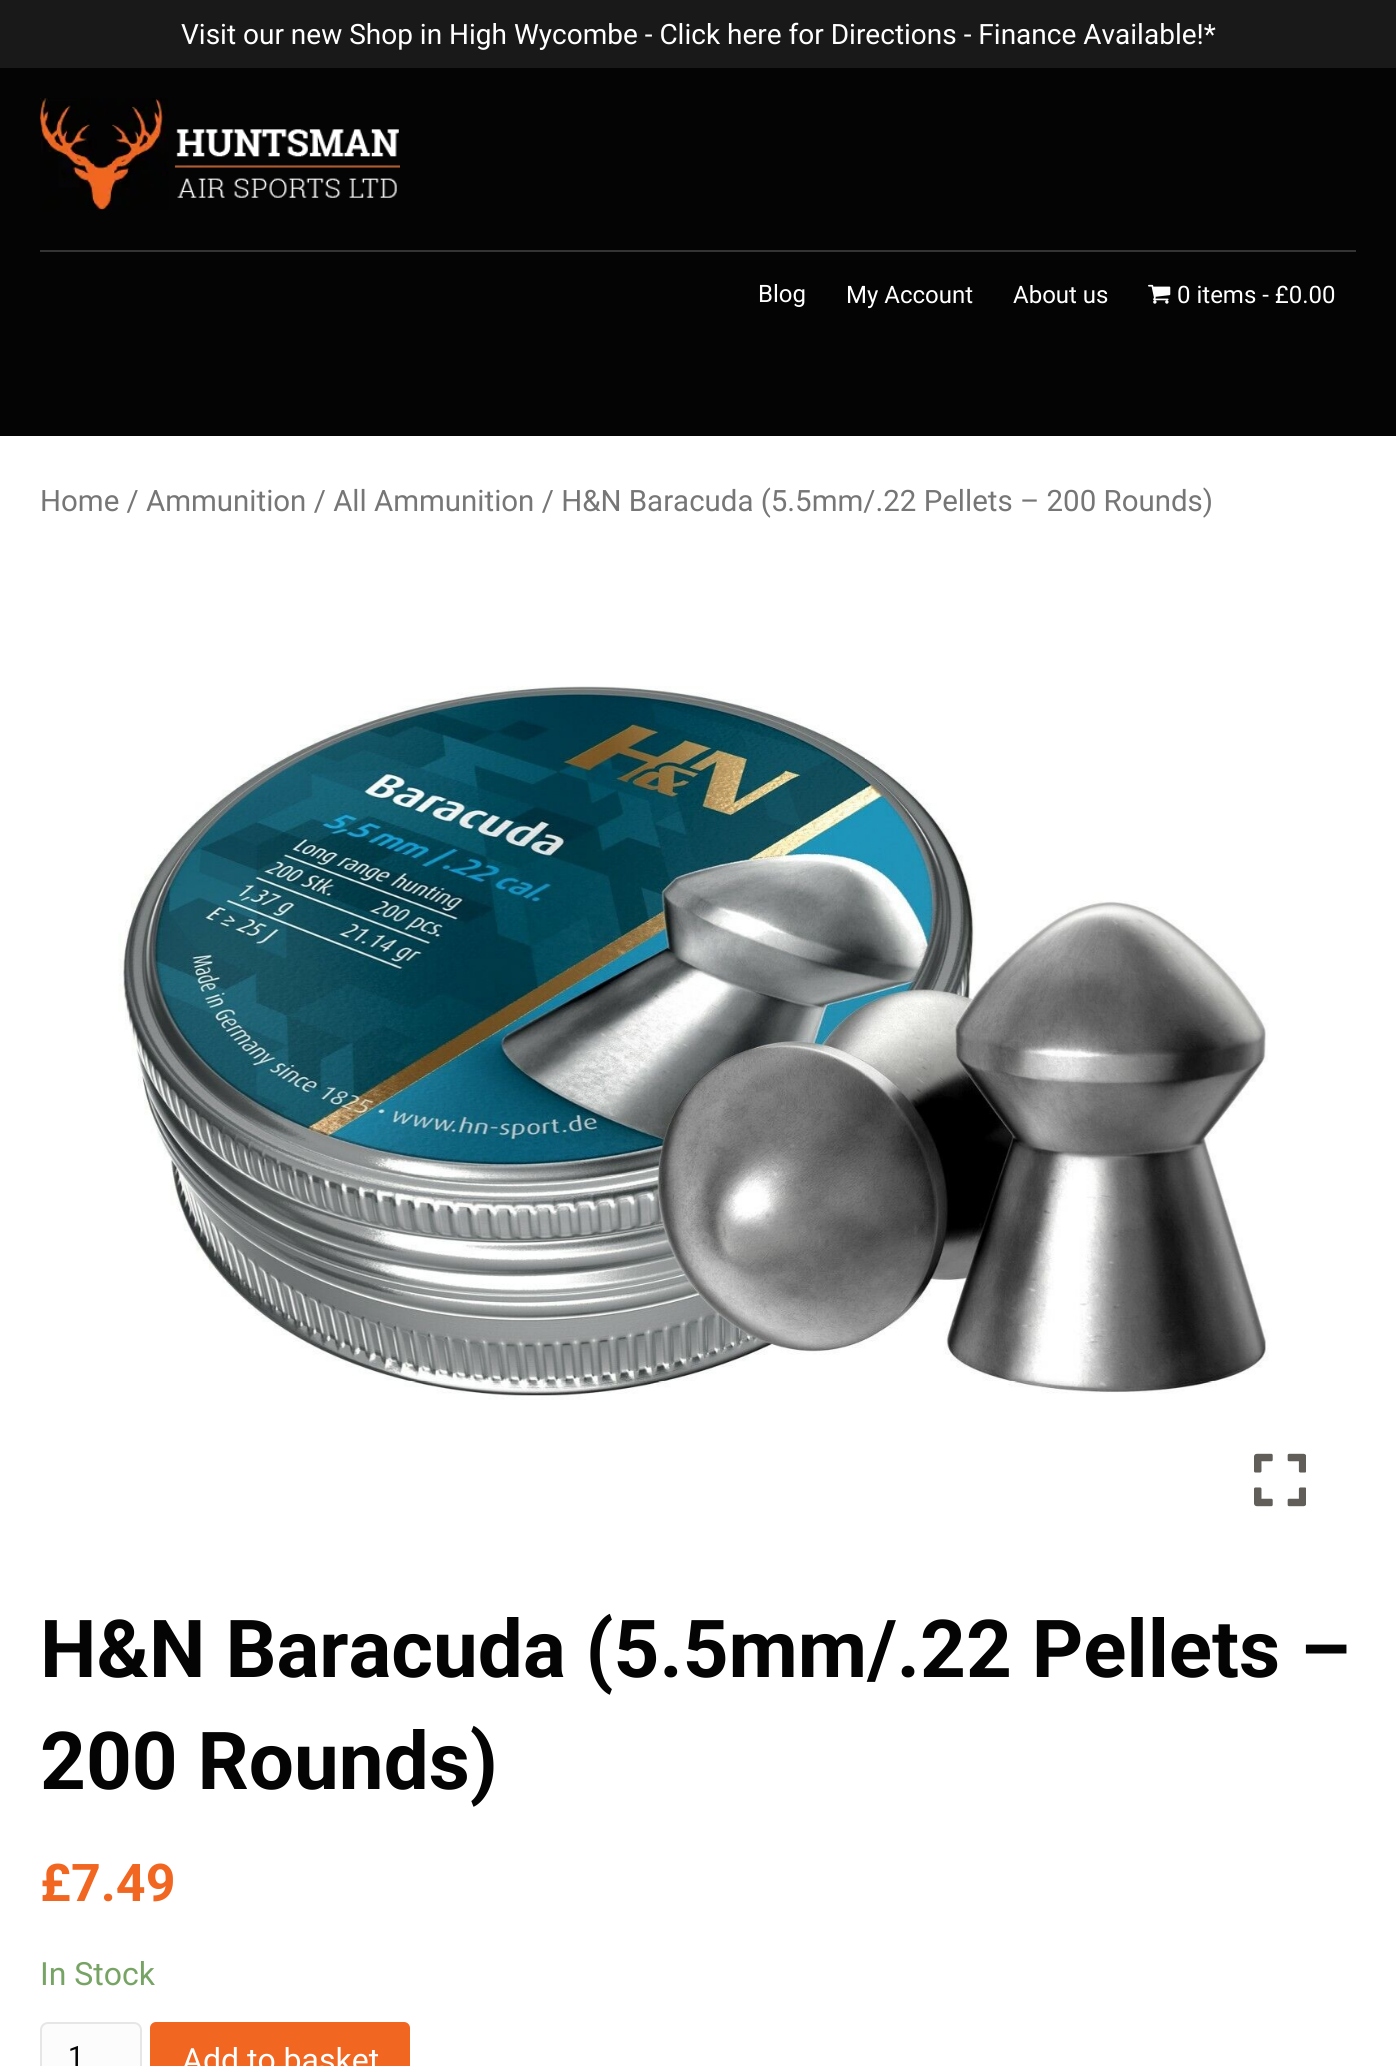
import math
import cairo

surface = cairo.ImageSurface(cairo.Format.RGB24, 1396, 2066)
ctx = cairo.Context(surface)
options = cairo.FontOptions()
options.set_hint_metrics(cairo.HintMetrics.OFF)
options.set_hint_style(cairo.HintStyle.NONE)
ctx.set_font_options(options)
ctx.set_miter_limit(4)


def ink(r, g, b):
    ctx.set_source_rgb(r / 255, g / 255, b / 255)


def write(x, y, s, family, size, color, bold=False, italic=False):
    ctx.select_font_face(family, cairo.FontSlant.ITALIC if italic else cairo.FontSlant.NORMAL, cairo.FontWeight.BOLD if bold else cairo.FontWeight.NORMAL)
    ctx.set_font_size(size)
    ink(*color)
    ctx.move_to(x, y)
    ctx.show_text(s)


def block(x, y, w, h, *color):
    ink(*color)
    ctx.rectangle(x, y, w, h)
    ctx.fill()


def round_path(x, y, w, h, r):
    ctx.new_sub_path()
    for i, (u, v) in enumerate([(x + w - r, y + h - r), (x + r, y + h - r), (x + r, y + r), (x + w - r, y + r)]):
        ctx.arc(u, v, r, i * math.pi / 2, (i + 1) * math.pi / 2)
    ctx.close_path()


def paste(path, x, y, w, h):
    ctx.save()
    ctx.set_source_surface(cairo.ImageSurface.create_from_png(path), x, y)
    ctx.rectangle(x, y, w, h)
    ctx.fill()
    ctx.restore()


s1 = dict(family="Roboto", size=28, color=(255, 255, 255))
s2 = dict(family="Roboto", size=24, color=(255, 255, 255))
s3 = dict(family="Roboto", size=29.45, color=(118, 118, 118))
s4 = dict(family="Roboto", size=80, color=(4, 4, 4), bold=True)
s5 = dict(family="Roboto", size=52, color=(241, 102, 33), bold=True)
s6 = dict(family="Roboto", size=32, color=(119, 164, 100))
s7 = dict(family="Roboto", size=28, color=(4, 4, 4))
s8 = dict(family="Roboto", size=32, color=(255, 255, 255))

ink(255, 255, 255)
ctx.paint()
block(0, 0, 1396, 68, 25, 25, 25)
write(181, 44, "Visit our new Shop in High Wycombe - Click here for Directions - Finance Available!*", **s1)
block(0, 68, 1396, 368, 4, 4, 4)
paste("pic1.png", 40, 98, 360, 112)
block(40, 250, 1316, 2, 52, 52, 52)
write(758, 302, "Blog", **s2)
write(846, 303, "My Account", **s2)
write(1013, 303, "About us", **s2)
paste("pic2.png", 1148, 284, 23, 20)
write(1177, 303, "0 items - £0.00", **s2)
write(40, 511, "Home / Ammunition / All Ammunition / H&N Baracuda (5.5mm/.22 Pellets – 200 Rounds)", **s3)
paste("pic3.png", 118, 686, 1151, 714)
paste("pic4.png", 1254, 1453, 52, 54)
write(40, 1677, "H&N Baracuda (5.5mm/.22 Pellets –", **s4)
write(40, 1789, "200 Rounds)", **s4)
write(40, 1901, "£7.49", **s5)
write(40, 1985, "In Stock", **s6)
ink(252, 252, 252)
round_path(41, 2023, 100, 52, 7)
ctx.fill_preserve()
ink(230, 230, 230)
ctx.stroke()
write(68, 2066, "1", **s7)
ink(241, 102, 33)
round_path(150, 2022, 260, 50, 6)
ctx.fill()
write(182, 2071, "Add to basket", **s8)
surface.write_to_png("screenshot.png")
